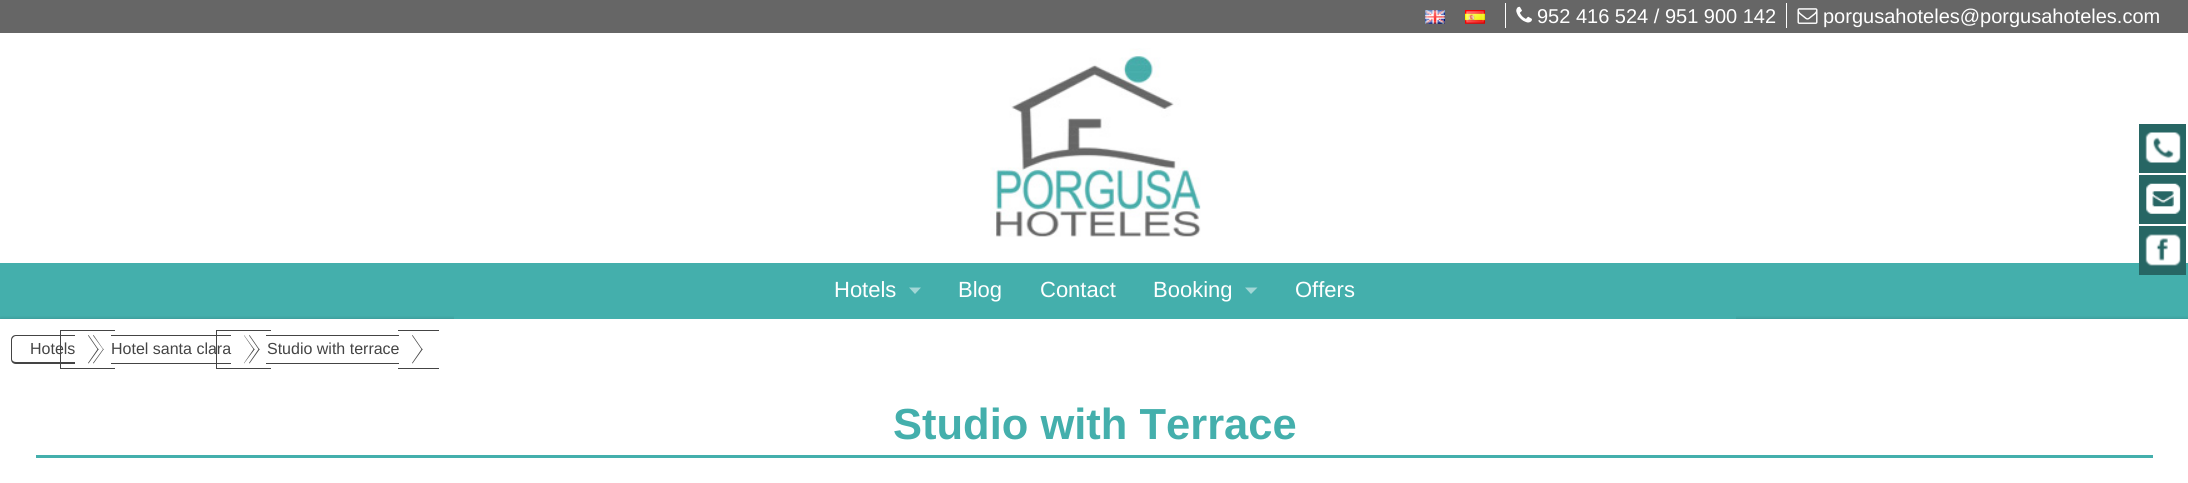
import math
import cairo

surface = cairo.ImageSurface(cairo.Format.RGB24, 2188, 483)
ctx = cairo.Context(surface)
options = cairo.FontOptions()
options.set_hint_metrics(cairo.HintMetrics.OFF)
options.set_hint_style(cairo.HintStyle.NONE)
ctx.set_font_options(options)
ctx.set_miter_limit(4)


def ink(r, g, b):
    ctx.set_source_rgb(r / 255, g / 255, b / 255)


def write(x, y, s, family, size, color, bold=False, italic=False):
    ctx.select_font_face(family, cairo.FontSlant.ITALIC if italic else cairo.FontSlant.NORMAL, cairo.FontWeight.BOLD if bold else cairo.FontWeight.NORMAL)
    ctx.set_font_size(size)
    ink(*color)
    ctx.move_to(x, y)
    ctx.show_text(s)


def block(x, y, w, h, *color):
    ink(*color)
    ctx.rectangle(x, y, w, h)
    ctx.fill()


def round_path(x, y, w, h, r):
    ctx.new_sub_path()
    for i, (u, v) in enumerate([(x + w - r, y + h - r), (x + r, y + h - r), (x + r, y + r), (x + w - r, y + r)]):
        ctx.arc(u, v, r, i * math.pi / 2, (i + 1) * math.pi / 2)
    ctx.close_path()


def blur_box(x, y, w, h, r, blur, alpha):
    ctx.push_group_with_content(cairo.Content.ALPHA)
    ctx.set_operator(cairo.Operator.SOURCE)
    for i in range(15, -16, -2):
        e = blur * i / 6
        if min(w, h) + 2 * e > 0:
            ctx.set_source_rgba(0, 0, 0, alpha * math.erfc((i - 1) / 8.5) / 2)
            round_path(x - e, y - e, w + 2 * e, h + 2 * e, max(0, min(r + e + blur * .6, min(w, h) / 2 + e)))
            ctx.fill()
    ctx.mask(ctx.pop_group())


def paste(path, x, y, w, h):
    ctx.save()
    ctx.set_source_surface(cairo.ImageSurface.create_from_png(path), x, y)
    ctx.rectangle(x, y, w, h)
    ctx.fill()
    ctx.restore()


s1 = dict(family="Liberation Sans", size=20, color=(255, 255, 255))
s2 = dict(family="Liberation Sans", size=22, color=(255, 255, 255))
s3 = dict(family="Liberation Sans", size=16, color=(68, 68, 68))
s4 = dict(family="Liberation Sans", size=43.5, color=(68, 175, 172), bold=True)

ink(255, 255, 255)
ctx.paint()
block(0, 0, 2188, 33, 102, 102, 102)
paste("pic1.png", 1425, 10, 20, 14)
paste("pic2.png", 1465, 10, 20, 14)
block(1505, 3, 1, 25, 255, 255, 255)
paste("pic3.png", 1516, 6, 16, 17)
write(1537, 23, "952 416 524 / 951 900 142", **s1)
block(1786, 3, 1, 25, 255, 255, 255)
paste("pic4.png", 1797, 8, 21, 16)
write(1823, 23, "porgusahoteles@porgusahoteles.com", **s1)
paste("pic5.png", 990, 48, 211, 189)
block(0, 263, 2188, 56, 68, 175, 172)
ctx.save()
ctx.rectangle(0, 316, 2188, 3)
ctx.clip()
ink(0, 0, 0)
blur_box(0, 319, 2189, 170, 0, 2, 0.2)
ctx.restore()
block(454, 316, 1282, 3, 68, 175, 172)
write(834, 297, "Hotels", **s2)
ink(162, 215, 214)
ctx.new_path()
ctx.move_to(909, 287.5)
ctx.line_to(921, 287.5)
ctx.line_to(915, 294)
ctx.close_path()
ctx.fill()
write(958, 297, "Blog", **s2)
write(1040, 297, "Contact", **s2)
write(1153, 297, "Booking", **s2)
ink(162, 215, 214)
ctx.new_path()
ctx.move_to(1245, 287.5)
ctx.line_to(1257.5, 287.5)
ctx.line_to(1251, 294)
ctx.close_path()
ctx.fill()
write(1295, 297, "Offers", **s2)
block(2139, 124, 47, 49, 39, 102, 100)
paste("pic6.png", 2145, 132, 36, 31)
block(2139, 175, 47, 49, 39, 102, 100)
paste("pic7.png", 2146, 183, 35, 31)
block(2139, 226, 47, 49, 39, 102, 100)
paste("pic8.png", 2145, 234, 36, 32)
ink(68, 68, 68)
ctx.set_fill_rule(cairo.FillRule.EVEN_ODD)
ctx.new_path()
ctx.move_to(16, 335)
ctx.line_to(75, 335)
ctx.line_to(75, 364)
ctx.line_to(16, 364)
ctx.curve_to(13, 364, 11, 362, 11, 359)
ctx.line_to(11, 340)
ctx.curve_to(11, 337, 13, 335, 16, 335)
ctx.close_path()
ctx.move_to(16, 336)
ctx.line_to(75, 336)
ctx.line_to(75, 362)
ctx.line_to(16, 362)
ctx.curve_to(14, 362, 12, 361, 12, 359)
ctx.line_to(12, 340)
ctx.curve_to(12, 338, 14, 336, 16, 336)
ctx.close_path()
ctx.fill()
block(60, 330, 55, 1, 68, 68, 68)
block(60, 368, 55, 1, 68, 68, 68)
write(30, 354, "Hotels", **s3)
ctx.set_fill_rule(cairo.FillRule.WINDING)
ctx.new_path()
ctx.move_to(93.5, 335)
ctx.line_to(103.5, 349.5)
ctx.line_to(103.5, 350)
ctx.line_to(93, 335.5)
ctx.close_path()
ctx.fill()
ctx.new_path()
ctx.move_to(103.5, 348.5)
ctx.line_to(103.5, 349.5)
ctx.line_to(93.5, 363.5)
ctx.line_to(93, 363)
ctx.close_path()
ctx.fill()
ctx.new_path()
ctx.move_to(88.5, 335)
ctx.line_to(98.5, 349.5)
ctx.line_to(98, 350)
ctx.line_to(88, 335.5)
ctx.close_path()
ctx.fill()
ctx.new_path()
ctx.move_to(98, 348.5)
ctx.line_to(98.5, 349.5)
ctx.line_to(88.5, 363.5)
ctx.line_to(88, 363)
ctx.close_path()
ctx.fill()
block(60, 330, 1, 39, 68, 68, 68)
block(111, 335, 120, 1, 68, 68, 68)
block(111, 363, 120, 1, 68, 68, 68)
block(216, 330, 55, 1, 68, 68, 68)
block(216, 368, 55, 1, 68, 68, 68)
write(111, 354, "Hotel santa clara", **s3)
ctx.new_path()
ctx.move_to(249.5, 335)
ctx.line_to(259.5, 349.5)
ctx.line_to(259, 350)
ctx.line_to(249, 335.5)
ctx.close_path()
ctx.fill()
ctx.new_path()
ctx.move_to(259, 348.5)
ctx.line_to(259.5, 349.5)
ctx.line_to(249.5, 363.5)
ctx.line_to(249, 363)
ctx.close_path()
ctx.fill()
ctx.new_path()
ctx.move_to(244, 335)
ctx.line_to(254.5, 349.5)
ctx.line_to(254, 350)
ctx.line_to(244, 335.5)
ctx.close_path()
ctx.fill()
ctx.new_path()
ctx.move_to(254, 348.5)
ctx.line_to(254.5, 349.5)
ctx.line_to(244, 363.5)
ctx.line_to(244, 363)
ctx.close_path()
ctx.fill()
block(216, 330, 1, 39, 68, 68, 68)
block(266, 335, 133, 1, 68, 68, 68)
block(266, 363, 133, 1, 68, 68, 68)
block(398, 330, 41, 1, 68, 68, 68)
block(398, 368, 41, 1, 68, 68, 68)
write(267, 354, "Studio with terrace", **s3)
ctx.new_path()
ctx.move_to(412.5, 335)
ctx.line_to(422.5, 349.5)
ctx.line_to(422, 350)
ctx.line_to(412, 335.5)
ctx.close_path()
ctx.fill()
ctx.new_path()
ctx.move_to(422, 348.5)
ctx.line_to(422.5, 349.5)
ctx.line_to(412.5, 363.5)
ctx.line_to(412, 363)
ctx.close_path()
ctx.fill()
block(36, 455, 2117, 3, 68, 175, 172)
write(893, 439, "Studio with Terrace", **s4)
surface.write_to_png("screenshot.png")
